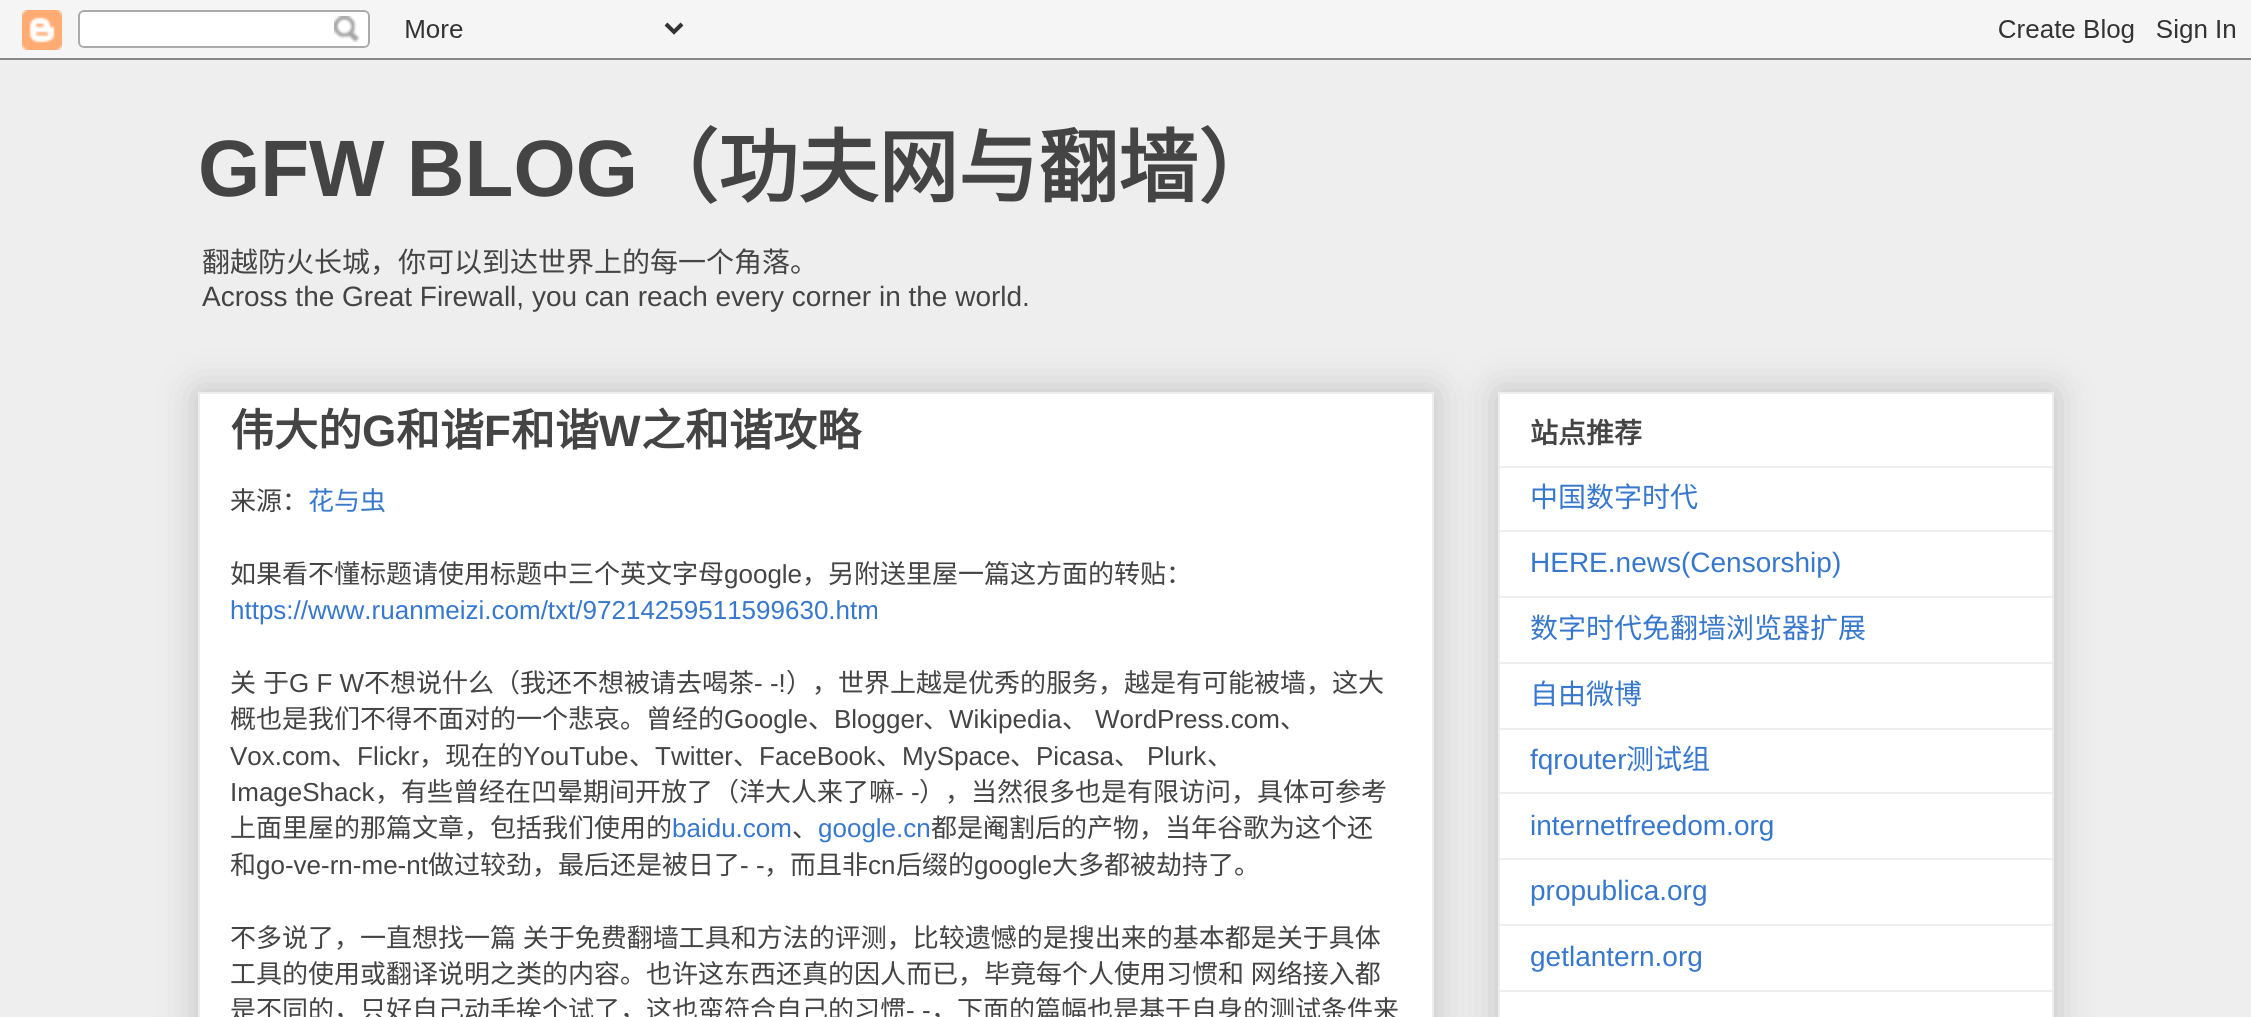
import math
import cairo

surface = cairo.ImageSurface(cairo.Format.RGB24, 2251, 1017)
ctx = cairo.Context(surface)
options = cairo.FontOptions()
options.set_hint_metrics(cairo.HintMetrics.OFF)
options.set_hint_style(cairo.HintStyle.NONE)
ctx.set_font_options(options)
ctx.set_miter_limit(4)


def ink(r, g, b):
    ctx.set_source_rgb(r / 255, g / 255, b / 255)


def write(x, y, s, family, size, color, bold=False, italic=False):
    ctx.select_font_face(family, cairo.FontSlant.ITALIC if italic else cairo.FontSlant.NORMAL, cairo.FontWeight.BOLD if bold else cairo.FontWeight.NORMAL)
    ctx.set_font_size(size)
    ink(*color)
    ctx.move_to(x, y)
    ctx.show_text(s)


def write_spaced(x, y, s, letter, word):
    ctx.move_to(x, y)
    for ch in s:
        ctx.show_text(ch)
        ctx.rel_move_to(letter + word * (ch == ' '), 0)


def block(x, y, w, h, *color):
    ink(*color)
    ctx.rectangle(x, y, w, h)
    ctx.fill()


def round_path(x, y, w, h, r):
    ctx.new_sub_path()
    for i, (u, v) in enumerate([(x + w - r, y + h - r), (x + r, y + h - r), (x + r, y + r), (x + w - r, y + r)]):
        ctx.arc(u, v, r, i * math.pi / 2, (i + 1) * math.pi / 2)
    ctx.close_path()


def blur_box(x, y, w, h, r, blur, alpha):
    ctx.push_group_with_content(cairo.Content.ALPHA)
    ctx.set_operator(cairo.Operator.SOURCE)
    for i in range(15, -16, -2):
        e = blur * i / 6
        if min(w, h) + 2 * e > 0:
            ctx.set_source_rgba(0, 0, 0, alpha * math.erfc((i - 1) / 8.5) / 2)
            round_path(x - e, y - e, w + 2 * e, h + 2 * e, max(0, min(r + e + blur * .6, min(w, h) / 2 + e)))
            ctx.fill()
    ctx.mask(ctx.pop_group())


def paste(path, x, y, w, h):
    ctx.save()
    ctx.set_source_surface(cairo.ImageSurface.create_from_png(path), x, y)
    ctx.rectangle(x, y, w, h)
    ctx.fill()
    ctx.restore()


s1 = dict(family="Liberation Sans", size=80, color=(68, 68, 68), bold=True)
s2 = dict(family="Noto Sans CJK SC", size=80, color=(68, 68, 68), bold=True)
s3 = dict(family="Noto Sans CJK SC", size=28, color=(68, 68, 68))
s4 = dict(family="Liberation Sans", size=28, color=(68, 68, 68))
s5 = dict(family="Noto Sans CJK SC", size=44, color=(68, 68, 68), bold=True)
s6 = dict(family="Liberation Sans", size=44, color=(68, 68, 68), bold=True)
s7 = dict(family="Noto Sans CJK SC", size=26, color=(68, 68, 68))
s8 = dict(family="Noto Sans CJK SC", size=26, color=(55, 120, 205))
s9 = dict(family="Liberation Sans", size=26, color=(68, 68, 68))
s10 = dict(family="Liberation Sans", size=26, color=(55, 120, 205))
s11 = dict(family="Noto Sans CJK SC", size=28, color=(68, 68, 68), bold=True)
s12 = dict(family="Noto Sans CJK SC", size=28, color=(55, 120, 205))
s13 = dict(family="Liberation Sans", size=28, color=(55, 120, 205))

ink(238, 238, 238)
ctx.paint()
paste("pic1.png", 0, 0, 2251, 60)
write(198, 196, "GFW BLOG", **s1)
write(638, 196, "（功夫网与翻墙）", **s2)
write(202, 272, "翻越防火长城，你可以到达世界上的每一个角落。", **s3)
write(202, 306, "Across the Great Firewall, you can reach every corner in the world.", **s4)
ink(0, 0, 0)
blur_box(198, 392, 1236, 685, 0, 20, 0.2)
ink(255, 255, 255)
ctx.rectangle(199, 393, 1234, 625)
ctx.fill_preserve()
ink(238, 238, 238)
ctx.stroke()
write(230, 446, "伟大的", **s5)
write(362, 446, "G", **s6)
write(396, 446, "和谐", **s5)
write(484, 446, "F", **s6)
write(511, 446, "和谐", **s5)
write(599, 446, "W", **s6)
write(641, 446, "之和谐攻略", **s5)
write(230, 510, "来源：", **s7)
write(308, 510, "花与虫", **s8)
write(230, 583, "如果看不懂标题请使用标题中三个英文字母", **s7)
write(724, 583, "google", **s9)
write(802, 583, "，另附送里屋一篇这方面的转贴：", **s7)
write(230, 619, "https://www.ruanmeizi.com/txt/97214259511599630.htm", **s10)
write(230, 692, "关", **s7)
write(263, 692, "于", **s7)
write(289, 692, "G F W", **s9)
write(364, 692, "不想说什么（我还不想被请去喝茶", **s7)
write(754, 692, "- -!", **s9)
write(786, 692, "），世界上越是优秀的服务，越是有可能被墙，这大", **s7)
write(230, 728, "概也是我们不得不面对的一个悲哀。曾经的", **s7)
write(724, 728, "Google", **s9)
write(808, 728, "、", **s7)
write(834, 728, "Blogger", **s9)
write(923, 728, "、", **s7)
write(949, 728, "Wikipedia", **s9)
write(1062, 728, "、", **s7)
write(1095, 728, "WordPress.com", **s9)
write(1280, 728, "、", **s7)
write(230, 765, "Vox.com", **s9)
write(331, 765, "、", **s7)
write(357, 765, "Flickr", **s9)
write(419, 765, "，现在的", **s7)
write(523, 765, "YouTube", **s9)
write(629, 765, "、", **s7)
write(655, 765, "Twitter", **s9)
write(733, 765, "、", **s7)
write(759, 765, "FaceBook", **s9)
write(876, 765, "、", **s7)
write(902, 765, "MySpace", **s9)
write(1010, 765, "、", **s7)
write(1036, 765, "Picasa", **s9)
write(1114, 765, "、", **s7)
write(1147, 765, "Plurk", **s9)
write(1207, 765, "、", **s7)
write(230, 801, "ImageShack", **s9)
write(375, 801, "，有些曾经在凹晕期间开放了（洋大人来了嘛", **s7)
write(895, 801, "- -", **s9)
write(919, 801, "），当然很多也是有限访问，具体可参考", **s7)
write(230, 837, "上面里屋的那篇文章，包括我们使用的", **s7)
write(672, 837, "baidu.com", **s10)
write(792, 837, "、", **s7)
write(818, 837, "google.cn", **s10)
write(931, 837, "都是阉割后的产物，当年谷歌为这个还", **s7)
write(230, 874, "和", **s7)
write(256, 874, "go-ve-rn-me-nt", **s9)
write(428, 874, "做过较劲，最后还是被日了", **s7)
write(740, 874, "- -", **s9)
write(764, 874, "，而且非", **s7)
write(868, 874, "cn", **s9)
write(896, 874, "后缀的", **s7)
write(974, 874, "google", **s9)
write(1052, 874, "大多都被劫持了。", **s7)
write_spaced(230, 947, "不多说了，一直想找一篇 关于免费翻墙工具和方法的评测，比较遗憾的是搜出来的基本都是关于具体", 0, 1)
write_spaced(230, 983, "工具的使用或翻译说明之类的内容。也许这东西还真的因人而已，毕竟每个人使用习惯和 网络接入都", 0, 1)
write(230, 1019, "是不同的，只好自己动手挨个试了，这也蛮符合自己的习惯", **s7)
write(906, 1019, "- -", **s9)
write(931, 1019, "，下面的篇幅也是基于自身的测试条件来", **s7)
ink(0, 0, 0)
blur_box(1498, 392, 556, 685, 0, 20, 0.2)
ink(255, 255, 255)
ctx.rectangle(1499, 393, 554, 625)
ctx.fill_preserve()
ink(238, 238, 238)
ctx.stroke()
write(1530, 443, "站点推荐", **s11)
block(1500, 466, 552, 2, 238, 238, 238)
write(1530, 507, "中国数字时代", **s12)
block(1500, 530, 552, 2, 238, 238, 238)
write(1530, 572, "HERE.news(Censorship)", **s13)
block(1500, 596, 552, 2, 238, 238, 238)
write(1530, 638, "数字时代免翻墙浏览器扩展", **s12)
block(1500, 662, 552, 2, 238, 238, 238)
write(1530, 704, "自由微博", **s12)
block(1500, 728, 552, 2, 238, 238, 238)
write(1530, 769, "fqrouter", **s13)
write(1626, 769, "测试组", **s12)
block(1500, 792, 552, 2, 238, 238, 238)
write(1530, 835, "internetfreedom.org", **s13)
block(1500, 858, 552, 2, 238, 238, 238)
write(1530, 900, "propublica.org", **s13)
block(1500, 924, 552, 2, 238, 238, 238)
write(1530, 966, "getlantern.org", **s13)
block(1500, 990, 552, 2, 238, 238, 238)
surface.write_to_png("screenshot.png")
